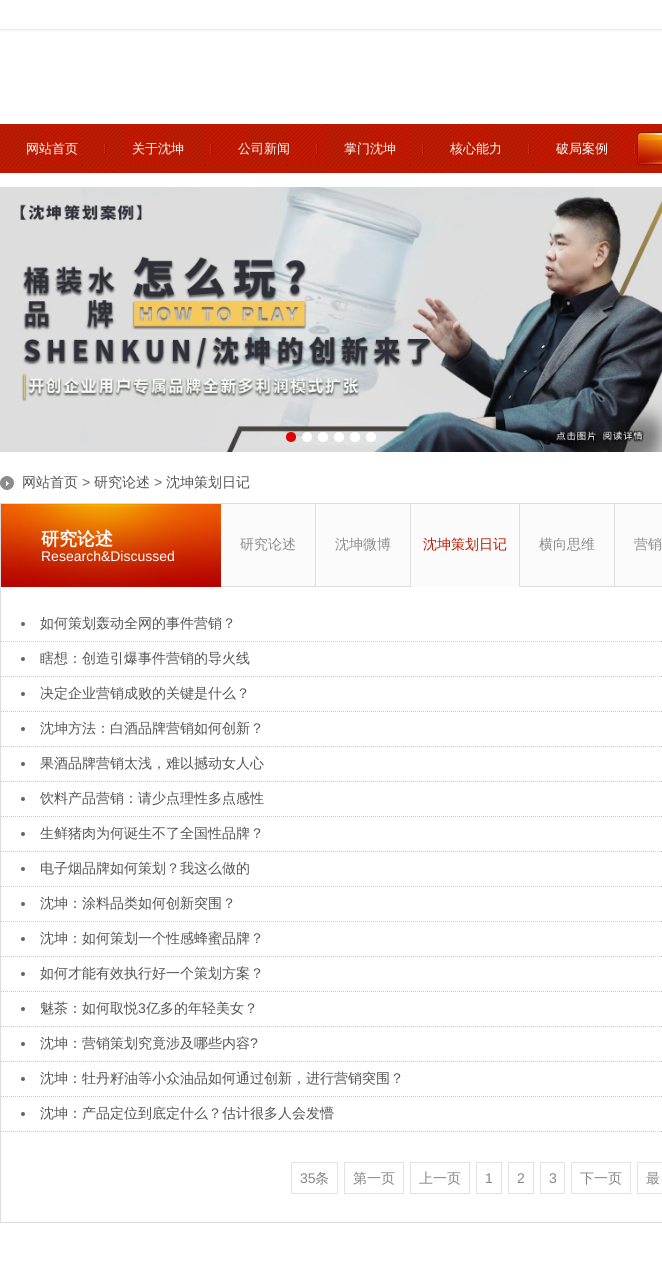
import math
import cairo

surface = cairo.ImageSurface(cairo.Format.RGB24, 662, 1261)
ctx = cairo.Context(surface)
options = cairo.FontOptions()
options.set_hint_metrics(cairo.HintMetrics.OFF)
options.set_hint_style(cairo.HintStyle.NONE)
ctx.set_font_options(options)
ctx.set_miter_limit(4)


def ink(r, g, b):
    ctx.set_source_rgb(r / 255, g / 255, b / 255)


def write(x, y, s, family, size, color, bold=False, italic=False):
    ctx.select_font_face(family, cairo.FontSlant.ITALIC if italic else cairo.FontSlant.NORMAL, cairo.FontWeight.BOLD if bold else cairo.FontWeight.NORMAL)
    ctx.set_font_size(size)
    ink(*color)
    ctx.move_to(x, y)
    ctx.show_text(s)


def block(x, y, w, h, *color):
    ink(*color)
    ctx.rectangle(x, y, w, h)
    ctx.fill()


def round_path(x, y, w, h, r):
    ctx.new_sub_path()
    for i, (u, v) in enumerate([(x + w - r, y + h - r), (x + r, y + h - r), (x + r, y + r), (x + w - r, y + r)]):
        ctx.arc(u, v, r, i * math.pi / 2, (i + 1) * math.pi / 2)
    ctx.close_path()


def blur_box(x, y, w, h, r, blur, alpha):
    ctx.push_group_with_content(cairo.Content.ALPHA)
    ctx.set_operator(cairo.Operator.SOURCE)
    for i in range(15, -16, -2):
        e = blur * i / 6
        if min(w, h) + 2 * e > 0:
            ctx.set_source_rgba(0, 0, 0, alpha * math.erfc((i - 1) / 8.5) / 2)
            round_path(x - e, y - e, w + 2 * e, h + 2 * e, max(0, min(r + e + blur * .6, min(w, h) / 2 + e)))
            ctx.fill()
    ctx.mask(ctx.pop_group())


def paste(path, x, y, w, h):
    ctx.save()
    ctx.set_source_surface(cairo.ImageSurface.create_from_png(path), x, y)
    ctx.rectangle(x, y, w, h)
    ctx.fill()
    ctx.restore()


s1 = dict(family="WenQuanYi Zen Hei Medium", size=13, color=(255, 255, 255))
s2 = dict(family="WenQuanYi Zen Hei Medium", size=14, color=(85, 85, 85))
s3 = dict(family="Liberation Sans", size=14, color=(102, 102, 102))
s4 = dict(family="WenQuanYi Zen Hei", size=18, color=(255, 255, 255), bold=True)
s5 = dict(family="Liberation Sans", size=14, color=(255, 255, 255))
s6 = dict(family="WenQuanYi Zen Hei Medium", size=14, color=(140, 140, 140))
s7 = dict(family="WenQuanYi Zen Hei Medium", size=14, color=(191, 26, 0))
s8 = dict(family="Liberation Sans", size=14, color=(85, 85, 85))
s9 = dict(family="Liberation Sans", size=14, color=(134, 134, 134))
s10 = dict(family="WenQuanYi Zen Hei Medium", size=14, color=(134, 134, 134))

ink(255, 255, 255)
ctx.paint()
ctx.save()
ctx.rectangle(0, 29, 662, 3)
ctx.clip()
ink(204, 204, 204)
blur_box(0, 0, 662, 29, 0, 1.5, 1)
ctx.restore()
paste("pic1.png", 0, 124, 662, 49)
paste("pic2.png", 104, 144, 2, 9)
write(26, 153, "网站首页", **s1)
paste("pic3.png", 210, 144, 2, 9)
write(132, 153, "关于沈坤", **s1)
paste("pic3.png", 316, 144, 2, 9)
write(238, 153, "公司新闻", **s1)
paste("pic4.png", 422, 144, 2, 9)
write(344, 153, "掌门沈坤", **s1)
paste("pic4.png", 528, 144, 2, 9)
write(450, 153, "核心能力", **s1)
paste("pic5.png", 634, 144, 2, 9)
write(556, 153, "破局案例", **s1)
paste("pic6.png", 637, 132, 25, 33)
paste("pic7.png", 0, 187, 662, 265)
ink(225, 0, 0)
ctx.arc(291, 437, 5, 0, 2 * math.pi)
ctx.fill()
ink(255, 255, 255)
ctx.arc(307, 437, 5, 0, 2 * math.pi)
ctx.fill()
ctx.arc(323, 437, 5, 0, 2 * math.pi)
ctx.fill()
ctx.arc(339, 437, 5, 0, 2 * math.pi)
ctx.fill()
ctx.arc(355, 437, 5, 0, 2 * math.pi)
ctx.fill()
ctx.arc(371, 437, 5, 0, 2 * math.pi)
ctx.fill()
paste("pic8.png", 0, 476, 14, 14)
write(22, 487, "网站首页", **s2)
write(82, 487, ">", **s3)
write(94, 487, "研究论述", **s2)
write(154, 487, ">", **s3)
write(166, 487, "沈坤策划日记", **s2)
ctx.rectangle(0.5, 503.5, 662, 719)
ink(221, 221, 221)
ctx.set_line_width(1)
ctx.stroke()
block(221, 504, 441, 82, 251, 251, 251)
paste("pic9.png", 1, 504, 220, 83)
write(41, 545, "研究论述", **s4)
write(41, 561, "Research&Discussed", **s5)
block(315, 504, 1, 83, 221, 221, 221)
block(221, 586, 95, 1, 221, 221, 221)
write(240, 549, "研究论述", **s6)
block(410, 504, 1, 83, 221, 221, 221)
block(316, 586, 95, 1, 221, 221, 221)
write(335, 549, "沈坤微博", **s6)
block(519, 504, 1, 83, 221, 221, 221)
block(411, 586, 109, 1, 251, 251, 251)
write(423, 549, "沈坤策划日记", **s7)
block(614, 504, 1, 83, 221, 221, 221)
block(520, 586, 142, 1, 221, 221, 221)
write(539, 549, "横向思维", **s6)
write(634, 549, "营销", **s6)
ctx.new_path()
ctx.move_to(1, 641.5)
ctx.line_to(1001, 641.5)
ink(204, 204, 204)
ctx.set_dash([1, 1])
ctx.stroke()
ink(102, 102, 102)
ctx.arc(23, 624, 2, 0, 2 * math.pi)
ctx.fill()
write(40, 628, "如何策划轰动全网的事件营销？", **s2)
ctx.new_path()
ctx.move_to(1, 676.5)
ctx.line_to(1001, 676.5)
ink(204, 204, 204)
ctx.stroke()
ink(102, 102, 102)
ctx.arc(23, 659, 2, 0, 2 * math.pi)
ctx.fill()
write(40, 663, "瞎想：创造引爆事件营销的导火线", **s2)
ctx.new_path()
ctx.move_to(1, 711.5)
ctx.line_to(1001, 711.5)
ink(204, 204, 204)
ctx.stroke()
ink(102, 102, 102)
ctx.arc(23, 694, 2, 0, 2 * math.pi)
ctx.fill()
write(40, 698, "决定企业营销成败的关键是什么？", **s2)
ctx.new_path()
ctx.move_to(1, 746.5)
ctx.line_to(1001, 746.5)
ink(204, 204, 204)
ctx.stroke()
ink(102, 102, 102)
ctx.arc(23, 729, 2, 0, 2 * math.pi)
ctx.fill()
write(40, 733, "沈坤方法：白酒品牌营销如何创新？", **s2)
ctx.new_path()
ctx.move_to(1, 781.5)
ctx.line_to(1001, 781.5)
ink(204, 204, 204)
ctx.stroke()
ink(102, 102, 102)
ctx.arc(23, 764, 2, 0, 2 * math.pi)
ctx.fill()
write(40, 768, "果酒品牌营销太浅，难以撼动女人心", **s2)
ctx.new_path()
ctx.move_to(1, 816.5)
ctx.line_to(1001, 816.5)
ink(204, 204, 204)
ctx.stroke()
ink(102, 102, 102)
ctx.arc(23, 799, 2, 0, 2 * math.pi)
ctx.fill()
write(40, 803, "饮料产品营销：请少点理性多点感性", **s2)
ctx.new_path()
ctx.move_to(1, 851.5)
ctx.line_to(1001, 851.5)
ink(204, 204, 204)
ctx.stroke()
ink(102, 102, 102)
ctx.arc(23, 834, 2, 0, 2 * math.pi)
ctx.fill()
write(40, 838, "生鲜猪肉为何诞生不了全国性品牌？", **s2)
ctx.new_path()
ctx.move_to(1, 886.5)
ctx.line_to(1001, 886.5)
ink(204, 204, 204)
ctx.stroke()
ink(102, 102, 102)
ctx.arc(23, 869, 2, 0, 2 * math.pi)
ctx.fill()
write(40, 873, "电子烟品牌如何策划？我这么做的", **s2)
ctx.new_path()
ctx.move_to(1, 921.5)
ctx.line_to(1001, 921.5)
ink(204, 204, 204)
ctx.stroke()
ink(102, 102, 102)
ctx.arc(23, 904, 2, 0, 2 * math.pi)
ctx.fill()
write(40, 908, "沈坤：涂料品类如何创新突围？", **s2)
ctx.new_path()
ctx.move_to(1, 956.5)
ctx.line_to(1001, 956.5)
ink(204, 204, 204)
ctx.stroke()
ink(102, 102, 102)
ctx.arc(23, 939, 2, 0, 2 * math.pi)
ctx.fill()
write(40, 943, "沈坤：如何策划一个性感蜂蜜品牌？", **s2)
ctx.new_path()
ctx.move_to(1, 991.5)
ctx.line_to(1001, 991.5)
ink(204, 204, 204)
ctx.stroke()
ink(102, 102, 102)
ctx.arc(23, 974, 2, 0, 2 * math.pi)
ctx.fill()
write(40, 978, "如何才能有效执行好一个策划方案？", **s2)
ctx.new_path()
ctx.move_to(1, 1026.5)
ctx.line_to(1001, 1026.5)
ink(204, 204, 204)
ctx.stroke()
ink(102, 102, 102)
ctx.arc(23, 1009, 2, 0, 2 * math.pi)
ctx.fill()
write(40, 1013, "魅茶：如何取悦", **s2)
write(138, 1013, "3", **s8)
write(146, 1013, "亿多的年轻美女？", **s2)
ctx.new_path()
ctx.move_to(1, 1061.5)
ctx.line_to(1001, 1061.5)
ink(204, 204, 204)
ctx.stroke()
ink(102, 102, 102)
ctx.arc(23, 1044, 2, 0, 2 * math.pi)
ctx.fill()
write(40, 1048, "沈坤：营销策划究竟涉及哪些内容", **s2)
write(250, 1048, "?", **s8)
ctx.new_path()
ctx.move_to(1, 1096.5)
ctx.line_to(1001, 1096.5)
ink(204, 204, 204)
ctx.stroke()
ink(102, 102, 102)
ctx.arc(23, 1079, 2, 0, 2 * math.pi)
ctx.fill()
write(40, 1083, "沈坤：牡丹籽油等小众油品如何通过创新，进行营销突围？", **s2)
ctx.new_path()
ctx.move_to(1, 1131.5)
ctx.line_to(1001, 1131.5)
ink(204, 204, 204)
ctx.stroke()
ink(102, 102, 102)
ctx.arc(23, 1114, 2, 0, 2 * math.pi)
ctx.fill()
write(40, 1118, "沈坤：产品定位到底定什么？估计很多人会发懵", **s2)
ctx.rectangle(291.5, 1162.5, 46, 31)
ink(227, 227, 227)
ctx.set_dash([])
ctx.stroke()
write(300, 1183, "35", **s9)
write(315, 1183, "条", **s10)
ctx.rectangle(344.5, 1162.5, 59, 31)
ink(227, 227, 227)
ctx.stroke()
write(353, 1183, "第一页", **s10)
ctx.rectangle(410.5, 1162.5, 59, 31)
ink(227, 227, 227)
ctx.stroke()
write(419, 1183, "上一页", **s10)
ctx.rectangle(476.5, 1162.5, 25, 31)
ink(227, 227, 227)
ctx.stroke()
write(485, 1183, "1", **s9)
ctx.rectangle(508.5, 1162.5, 25, 31)
ink(227, 227, 227)
ctx.stroke()
write(517, 1183, "2", **s9)
ctx.rectangle(540.5, 1162.5, 24, 31)
ink(227, 227, 227)
ctx.stroke()
write(549, 1183, "3", **s9)
ctx.rectangle(571.5, 1162.5, 59, 31)
ink(227, 227, 227)
ctx.stroke()
write(580, 1183, "下一页", **s10)
ctx.rectangle(637.5, 1162.5, 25, 31)
ink(227, 227, 227)
ctx.stroke()
write(646, 1183, "最", **s10)
surface.write_to_png("screenshot.png")
